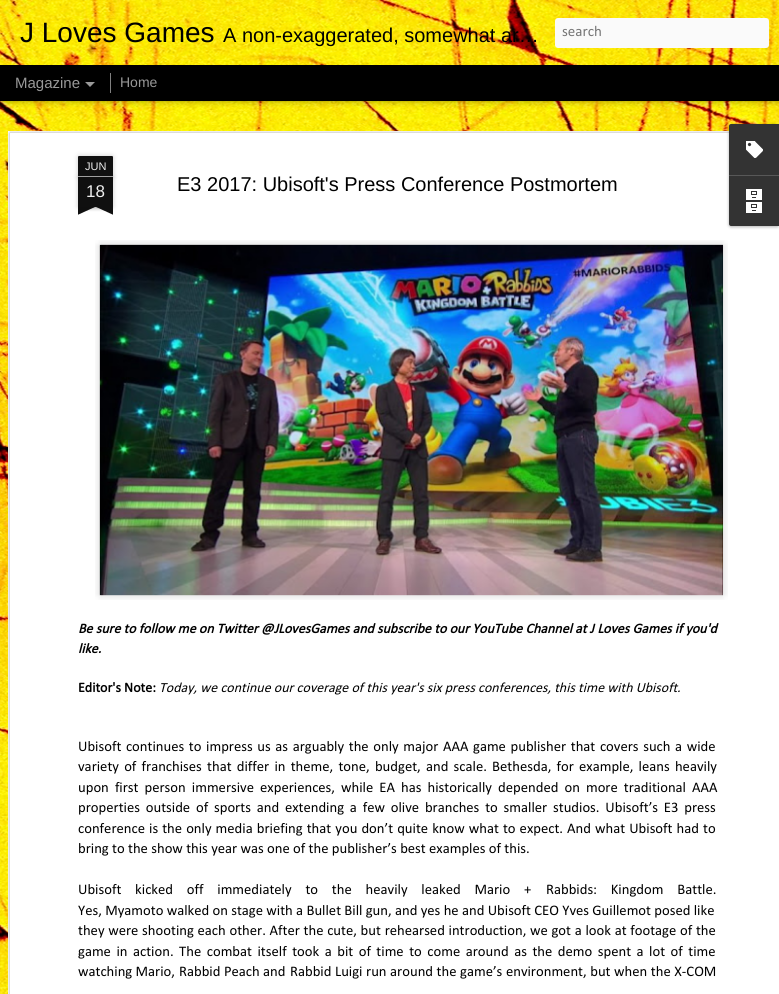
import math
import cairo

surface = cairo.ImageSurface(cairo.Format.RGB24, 779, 994)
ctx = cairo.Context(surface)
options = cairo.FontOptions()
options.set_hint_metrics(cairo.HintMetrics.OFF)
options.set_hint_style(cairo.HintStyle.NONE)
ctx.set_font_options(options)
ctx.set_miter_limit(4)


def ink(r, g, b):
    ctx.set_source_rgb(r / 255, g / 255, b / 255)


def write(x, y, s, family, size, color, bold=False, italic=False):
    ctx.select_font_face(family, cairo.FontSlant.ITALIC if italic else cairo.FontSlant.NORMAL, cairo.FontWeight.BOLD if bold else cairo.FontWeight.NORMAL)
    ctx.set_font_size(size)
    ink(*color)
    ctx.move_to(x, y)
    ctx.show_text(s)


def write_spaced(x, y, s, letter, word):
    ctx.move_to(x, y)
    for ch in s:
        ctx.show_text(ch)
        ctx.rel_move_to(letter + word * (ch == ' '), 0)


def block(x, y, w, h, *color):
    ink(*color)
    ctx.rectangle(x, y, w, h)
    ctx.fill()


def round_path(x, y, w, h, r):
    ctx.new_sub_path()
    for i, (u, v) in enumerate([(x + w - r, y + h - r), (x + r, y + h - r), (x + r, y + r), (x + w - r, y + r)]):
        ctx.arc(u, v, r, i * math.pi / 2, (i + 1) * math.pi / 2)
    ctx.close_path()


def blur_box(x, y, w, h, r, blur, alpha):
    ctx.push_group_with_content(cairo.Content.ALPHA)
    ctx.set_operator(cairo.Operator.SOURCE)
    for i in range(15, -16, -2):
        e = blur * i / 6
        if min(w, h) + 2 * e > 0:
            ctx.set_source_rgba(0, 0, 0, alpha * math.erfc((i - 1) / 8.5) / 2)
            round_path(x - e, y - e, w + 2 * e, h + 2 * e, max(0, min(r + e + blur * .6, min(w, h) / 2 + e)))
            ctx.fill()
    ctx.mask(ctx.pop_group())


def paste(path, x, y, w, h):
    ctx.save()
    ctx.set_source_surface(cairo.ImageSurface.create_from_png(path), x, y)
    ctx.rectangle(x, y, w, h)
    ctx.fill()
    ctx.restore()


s1 = dict(family="Liberation Sans", size=28, color=(0, 0, 0))
s2 = dict(family="Liberation Sans", size=20, color=(0, 0, 0))
s3 = dict(family="Calibri", size=15, color=(117, 117, 117))
s4 = dict(family="Liberation Sans", size=15, color=(153, 153, 153))
s5 = dict(family="Liberation Sans", size=14, color=(153, 153, 153))
s6 = dict(family="Liberation Sans", size=11, color=(238, 238, 238))
s7 = dict(family="Liberation Sans", size=17, color=(238, 238, 238))
s8 = dict(family="Calibri", size=14, color=(0, 0, 0), bold=True, italic=True)
s9 = dict(family="Calibri", size=14, color=(0, 0, 0), bold=True)
s10 = dict(family="Calibri", size=14, color=(0, 0, 0), italic=True)
s11 = dict(family="Calibri", size=14.65, color=(0, 0, 0))

ink(0, 0, 0)
ctx.paint()
paste("pic2.png", 0, 101, 779, 893)
blur_box(0, 65, 779, 35, 0, 4, 0.5)
paste("pic1.png", 0, 0, 779, 65)
write(20, 42, "J Loves Games", **s1)
write(223, 42, "A non-exaggerated, somewhat ar…", **s2)
ink(250, 250, 250)
round_path(555, 18, 214, 30, 3)
ctx.fill()
write(562, 36, "search", **s3)
write(15, 88, "Magazine", **s4)
ctx.new_path()
ctx.move_to(85, 82)
ctx.line_to(95, 82)
ctx.line_to(90, 87)
ctx.close_path()
ctx.fill()
block(110, 73, 1, 20, 128, 128, 128)
write(120, 87, "Home", **s5)
block(8, 131, 771, 863, 255, 255, 255)
paste("pic3.png", 8, 131, 721, 863)
ink(0, 0, 0)
blur_box(78, 177, 35, 30, 0, 2.5, 0.2)
block(78, 177, 35, 30, 16, 16, 16)
ink(0, 0, 0)
blur_box(78, 156, 35, 21, 1, 2.5, 0.2)
ink(16, 16, 16)
ctx.new_path()
ctx.move_to(79, 156)
ctx.line_to(112, 156)
ctx.curve_to(112.5, 156, 113, 156.5, 113, 157)
ctx.line_to(113, 177)
ctx.line_to(78, 177)
ctx.line_to(78, 157)
ctx.curve_to(78, 156.5, 78.5, 156, 79, 156)
ctx.close_path()
ctx.fill()
block(78, 176, 35, 1, 159, 159, 159)
write(85, 170, "JUN", **s6)
write(86, 197, "18", **s7)
ctx.save()
ctx.rectangle(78, 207, 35, 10)
ctx.clip()
ink(0, 0, 0)
blur_box(69, 197, 50, 10, 0, 2.5, 0.2)
ctx.restore()
ctx.save()
ctx.rectangle(78, 207, 35, 10)
ctx.clip()
ink(16, 16, 16)
ctx.new_path()
ctx.move_to(69, 208)
ctx.line_to(115, 187)
ctx.line_to(119, 196)
ctx.line_to(73, 217)
ctx.close_path()
ctx.fill()
ctx.restore()
ctx.save()
ctx.rectangle(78, 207, 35, 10)
ctx.clip()
ink(0, 0, 0)
blur_box(72, 197, 50, 10, 0, 2.5, 0.2)
ctx.restore()
ctx.save()
ctx.rectangle(78, 207, 35, 10)
ctx.clip()
ink(16, 16, 16)
ctx.new_path()
ctx.move_to(76, 187)
ctx.line_to(122, 208)
ctx.line_to(118, 217)
ctx.line_to(72, 196)
ctx.close_path()
ctx.fill()
ctx.restore()
write(177, 191, "E3 2017: Ubisoft's Press Conference Postmortem", **s2)
paste("pic4.png", 95, 240, 633, 360)
paste("pic5.png", 99, 244, 625, 352)
write(78, 633, "Be sure to follow me on Twitter @JLovesGames and subscribe to our YouTube Channel at J Loves Games if you'd", **s8)
write(78, 653, "like.", **s8)
write(78, 692, "Editor's Note:", **s9)
write(159, 692, "Today, we continue our coverage of this year's six press conferences, this time with Ubisoft.", **s10)
ctx.select_font_face("Calibri")
ctx.set_font_size(14.65)
write_spaced(78, 751, "Ubisoft continues to impress us as arguably the only major AAA game publisher that covers such a wide", 0, 1.3)
write_spaced(78, 771, "variety of franchises that differ in theme, tone, budget, and scale. Bethesda, for example, leans heavily", 0, 1.9)
write_spaced(78, 792, "upon first person immersive experiences, while EA has historically depended on more traditional AAA", 0, 2.75)
write_spaced(78, 812, "properties outside of sports and extending a few olive branches to smaller studios. Ubisoft’s E3 press", 0, 2.5)
write_spaced(78, 833, "conference is the only media briefing that you don’t quite know what to expect. And what Ubisoft had to", 0, 0.75)
write(78, 853, "bring to the show this year was one of the publisher’s best examples of this.", **s11)
write_spaced(78, 894, "Ubisoft kicked off immediately to the heavily leaked Mario +", 0, 10.5)
write(546, 894, "Rabbids", **s11)
write_spaced(593, 894, ": Kingdom Battle.", 0, 10.5)
write(78, 915, "Yes, Myamoto walked on stage with a Bullet Bill gun, and yes he and Ubisoft CEO Yves Guillemot posed like", **s11)
write_spaced(78, 935, "they were shooting each other. After the cute, but rehearsed introduction, we got a look at footage of the", 0, 0.4)
write_spaced(78, 956, "game in action. The combat itself took a bit of time to come around as the demo spent a lot of time", 0, 2.2)
write(78, 976, "watching Mario,", **s11)
write(179, 976, "Rabbid", **s11)
write(224, 976, "Peach and", **s11)
write(290, 976, "Rabbid", **s11)
write_spaced(335, 976, "Luigi run around the game’s environment, but when the X-COM", 0, 0.25)
ink(0, 0, 0)
blur_box(729, 125, 50, 102, 2, 1.5, 0.3)
ink(51, 51, 51)
ctx.new_path()
ctx.move_to(731, 124)
ctx.line_to(779, 124)
ctx.line_to(779, 175)
ctx.line_to(729, 175)
ctx.line_to(729, 126)
ctx.curve_to(729, 125, 730, 124, 731, 124)
ctx.close_path()
ctx.fill()
paste("pic6.png", 746, 141, 17, 17)
ctx.new_path()
ctx.move_to(729, 175)
ctx.line_to(779, 175)
ctx.line_to(779, 226)
ctx.line_to(731, 226)
ctx.curve_to(730, 226, 729, 225, 729, 224)
ctx.close_path()
ctx.fill()
block(729, 175, 50, 1, 88, 88, 88)
paste("pic7.png", 746, 189, 16, 24)
surface.write_to_png("screenshot.png")
